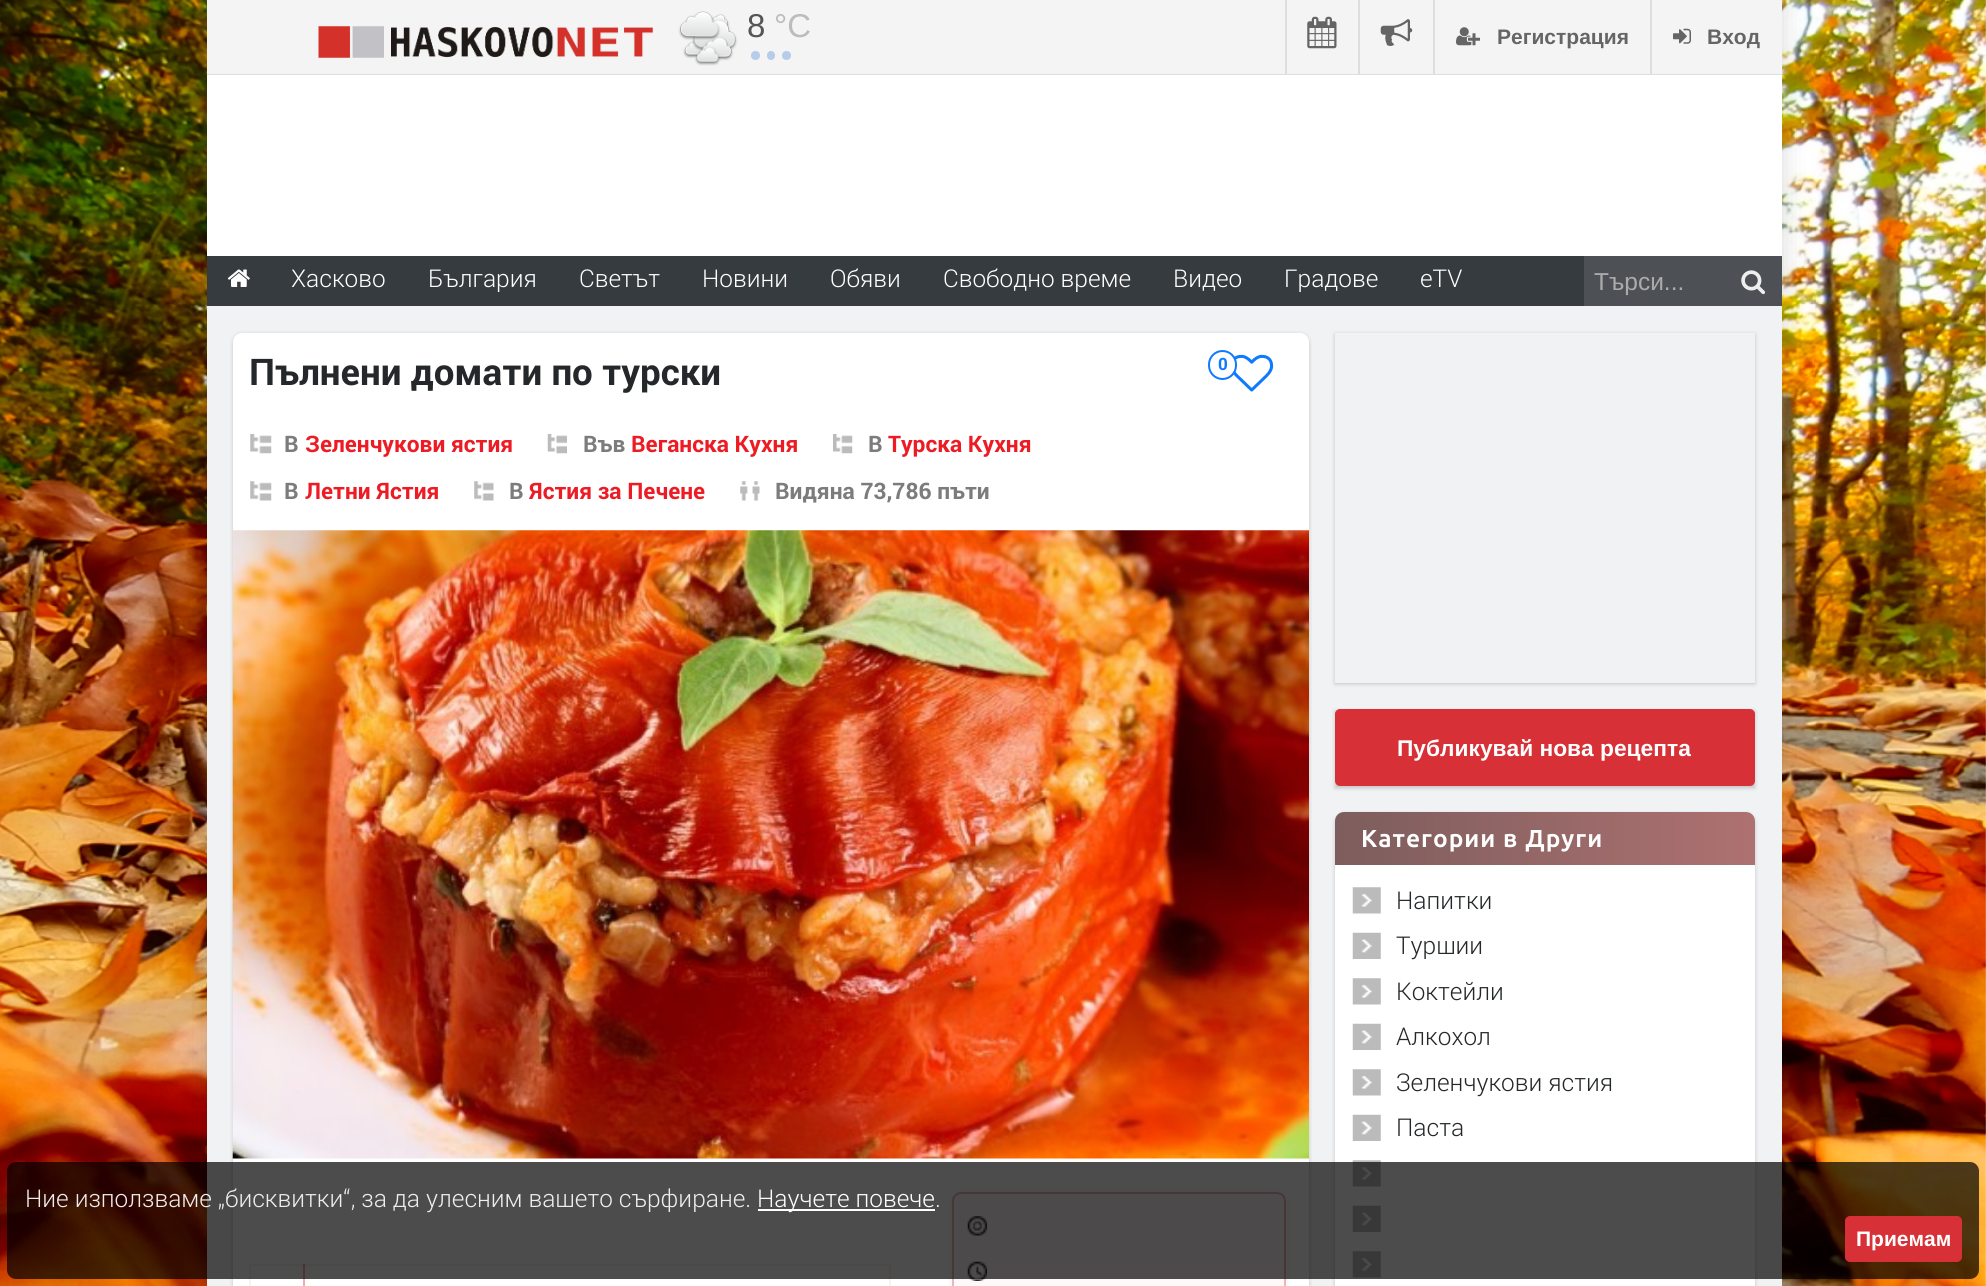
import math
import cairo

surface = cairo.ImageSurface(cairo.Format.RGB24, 1986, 1286)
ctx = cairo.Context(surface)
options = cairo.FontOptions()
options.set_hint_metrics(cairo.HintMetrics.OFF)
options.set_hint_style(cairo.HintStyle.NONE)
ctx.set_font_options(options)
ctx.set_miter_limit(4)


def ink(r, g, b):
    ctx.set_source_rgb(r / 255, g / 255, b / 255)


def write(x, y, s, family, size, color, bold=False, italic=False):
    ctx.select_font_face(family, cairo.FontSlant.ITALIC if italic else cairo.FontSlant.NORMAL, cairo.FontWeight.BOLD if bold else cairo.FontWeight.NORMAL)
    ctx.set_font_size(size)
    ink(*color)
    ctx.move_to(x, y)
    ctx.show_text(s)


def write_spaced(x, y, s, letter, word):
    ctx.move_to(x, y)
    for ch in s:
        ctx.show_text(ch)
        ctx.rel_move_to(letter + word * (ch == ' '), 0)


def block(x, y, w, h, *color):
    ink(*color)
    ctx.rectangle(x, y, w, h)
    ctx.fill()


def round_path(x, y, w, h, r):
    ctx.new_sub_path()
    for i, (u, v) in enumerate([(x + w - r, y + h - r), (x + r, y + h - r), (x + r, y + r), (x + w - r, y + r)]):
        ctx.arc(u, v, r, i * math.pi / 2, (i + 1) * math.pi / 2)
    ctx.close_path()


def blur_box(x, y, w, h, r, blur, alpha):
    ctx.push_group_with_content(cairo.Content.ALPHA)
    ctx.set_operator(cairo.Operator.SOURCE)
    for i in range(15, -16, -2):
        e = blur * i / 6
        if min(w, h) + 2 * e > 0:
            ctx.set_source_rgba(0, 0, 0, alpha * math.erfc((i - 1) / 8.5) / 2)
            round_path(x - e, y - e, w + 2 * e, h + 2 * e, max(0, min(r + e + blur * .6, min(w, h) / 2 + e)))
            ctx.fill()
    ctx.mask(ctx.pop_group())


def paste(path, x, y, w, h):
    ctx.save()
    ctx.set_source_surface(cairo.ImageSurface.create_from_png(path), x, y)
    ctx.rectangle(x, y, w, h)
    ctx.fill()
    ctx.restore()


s1 = dict(family="Liberation Sans", size=33, color=(85, 85, 85))
s2 = dict(family="Liberation Sans", size=33, color=(188, 188, 188))
s3 = dict(family="Liberation Sans", size=21, color=(101, 101, 101), bold=True)
s4 = dict(family="Roboto Light", size=24.5, color=(255, 255, 255))
s5 = dict(family="Liberation Sans", size=24.5, color=(171, 171, 171))
s6 = dict(family="Roboto", size=36.75, color=(37, 40, 42), bold=True)
s7 = dict(family="Roboto", size=17, color=(14, 122, 254), bold=True)
s8 = dict(family="Roboto", size=22.75, color=(124, 124, 124), bold=True)
s9 = dict(family="Roboto", size=22.75, color=(237, 28, 36), bold=True)
s10 = dict(family="Liberation Sans", size=22.75, color=(255, 255, 255), bold=True)
s11 = dict(family="Roboto Light", size=24.5, color=(37, 40, 42))
s12 = dict(family="Roboto Light", size=24.5, color=(238, 238, 238))
s13 = dict(family="Liberation Sans", size=21, color=(255, 255, 255), bold=True)

ink(255, 255, 255)
ctx.paint()
paste("pic1.png", 0, 0, 1986, 1286)
ink(0, 0, 0)
blur_box(207, 0, 1575, 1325, 0, 13, 0.15)
block(207, 306, 1575, 980, 241, 242, 243)
block(207, 75, 1575, 181, 255, 255, 255)
block(207, 0, 1575, 74, 244, 244, 244)
paste("pic2.png", 318, 26, 335, 32)
paste("pic3.png", 678, 11, 60, 55)
write(747, 37, "8", **s1)
write(774, 37, "°C", **s2)
ink(183, 203, 234)
ctx.new_path()
ctx.arc(786.5, 55.5, 4.5, 0, 2 * math.pi)
ctx.fill()
round_path(767, 51, 8, 9, 4)
ctx.fill()
ctx.arc(755.5, 55.5, 4.5, 0, 2 * math.pi)
ctx.fill()
block(207, 74, 1575, 1, 222, 222, 222)
block(1285, 0, 2, 74, 222, 222, 222)
paste("pic4.png", 1307, 16, 30, 33)
block(1358, 0, 2, 74, 222, 222, 222)
paste("pic5.png", 1380, 19, 33, 27)
block(1433, 0, 2, 74, 222, 222, 222)
paste("pic6.png", 1456, 27, 24, 19)
write(1497, 44, "Регистрация", **s3)
block(1650, 0, 2, 74, 222, 222, 222)
paste("pic7.png", 1673, 28, 18, 16)
write(1707, 44, "Вход", **s3)
block(207, 256, 1377, 50, 54, 59, 64)
paste("pic8.png", 227, 269, 23, 18)
write(291, 287, "Хасково", **s4)
write(428, 287, "България", **s4)
write(579, 287, "Светът", **s4)
write(702, 287, "Новини", **s4)
write(830, 287, "Обяви", **s4)
write(943, 287, "Свободно време", **s4)
write(1173, 287, "Видео", **s4)
write(1284, 287, "Градове", **s4)
write(1420, 287, "eTV", **s4)
block(1584, 256, 198, 50, 77, 81, 86)
write(1594, 290, "Търси...", **s5)
paste("pic9.png", 1741, 270, 25, 25)
ink(0, 0, 0)
blur_box(233, 334, 1076, 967, 9, 2, 0.2)
ink(255, 255, 255)
round_path(233, 333, 1076, 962, 9)
ctx.fill()
write(249, 385, "Пълнени домати по турски", **s6)
paste("pic10.png", 1233, 354, 41, 38)
ink(255, 255, 255)
round_path(1209, 351, 27, 28, 13.5)
ctx.fill_preserve()
ink(14, 122, 254)
ctx.stroke()
write(1218, 370, "0", **s7)
paste("pic11.png", 250, 434, 22, 20)
write(284, 452, "В", **s8)
write(305, 452, "Зеленчукови ястия", **s9)
paste("pic12.png", 547, 434, 20, 20)
write(583, 452, "Във", **s8)
write(631, 452, "Веганска Кухня", **s9)
paste("pic13.png", 833, 434, 20, 20)
write(868, 452, "В", **s8)
write(888, 452, "Турска Кухня", **s9)
paste("pic14.png", 250, 481, 22, 20)
write(284, 499, "В", **s8)
write(305, 499, "Летни Ястия", **s9)
paste("pic15.png", 474, 481, 20, 20)
write(509, 499, "В", **s8)
write(529, 499, "Ястия за Печене", **s9)
paste("pic16.png", 740, 481, 20, 20)
write(775, 499, "Видяна 73,786 пъти", **s8)
paste("pic17.png", 232, 530, 1077, 629)
ctx.rectangle(250, 1265, 640, 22)
ink(250, 243, 233)
ctx.stroke()
block(303, 1264, 2, 22, 251, 169, 174)
ink(0, 0, 0)
blur_box(952, 1194, 334, 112, 9, 3.5, 0.07)
ink(255, 248, 248)
round_path(953, 1193, 332, 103, 8)
ctx.fill_preserve()
ink(236, 183, 185)
ctx.stroke()
paste("pic18.png", 967, 1216, 20, 20)
paste("pic19.png", 967, 1261, 20, 20)
ctx.save()
ctx.set_fill_rule(cairo.FillRule.EVEN_ODD)
ctx.new_path()
ctx.move_to(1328, 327)
ctx.line_to(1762, 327)
ctx.line_to(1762, 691)
ctx.line_to(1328, 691)
ctx.close_path()
ctx.move_to(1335, 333)
ctx.line_to(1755, 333)
ctx.line_to(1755, 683)
ctx.line_to(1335, 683)
ctx.close_path()
ctx.clip()
ink(0, 0, 0)
blur_box(1335, 334, 420, 350, 0, 2, 0.2)
ctx.restore()
ink(0, 0, 0)
blur_box(1335, 711, 420, 77, 0, 2, 0.2)
ink(215, 48, 54)
round_path(1336, 710, 418, 75, 4)
ctx.fill_preserve()
ctx.stroke()
write(1397, 756, "Публикувай нова рецепта", **s10)
ink(0, 0, 0)
blur_box(1335, 814, 420, 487, 9, 2, 0.2)
ink(255, 255, 255)
round_path(1335, 812, 420, 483, 9)
ctx.fill()
gradient = cairo.LinearGradient(1335, 838, 1755, 838)
gradient.add_color_stop_rgba(0, 0.49, 0.365, 0.365, 1)
gradient.add_color_stop_rgba(1, 0.682, 0.443, 0.443, 1)
ctx.set_source(gradient)
ctx.new_path()
ctx.move_to(1344, 812)
ctx.line_to(1746, 812)
ctx.curve_to(1751, 812, 1755, 816, 1755, 821)
ctx.line_to(1755, 865)
ctx.line_to(1335, 865)
ctx.line_to(1335, 821)
ctx.curve_to(1335, 816, 1339, 812, 1344, 812)
ctx.close_path()
ctx.fill()
ctx.select_font_face("Ubuntu", cairo.FontSlant.NORMAL, cairo.FontWeight.BOLD)
ctx.set_font_size(24.5)
ink(255, 255, 255)
write_spaced(1361, 847, "Категории в Други", 1, 0)
paste("pic20.png", 1352, 887, 29, 27)
write(1396, 909, "Напитки", **s11)
paste("pic21.png", 1352, 932, 29, 27)
write(1396, 954, "Туршии", **s11)
paste("pic20.png", 1352, 978, 29, 27)
write(1396, 1000, "Коктейли", **s11)
paste("pic21.png", 1352, 1023, 29, 27)
write(1396, 1045, "Алкохол", **s11)
paste("pic20.png", 1352, 1069, 29, 27)
write(1396, 1091, "Зеленчукови ястия", **s11)
paste("pic21.png", 1352, 1114, 29, 27)
write(1396, 1136, "Паста", **s11)
paste("pic20.png", 1352, 1160, 29, 27)
paste("pic21.png", 1352, 1205, 29, 27)
paste("pic20.png", 1352, 1251, 29, 27)
ctx.set_source_rgba(0, 0, 0, 0.7)
round_path(7, 1162, 1972, 117, 9)
ctx.fill()
write(25, 1207, "Ние използваме „бисквитки“, за да улесним вашето сърфиране.", **s12)
block(758, 1209, 177, 2, 255, 255, 255)
write(757, 1207, "Научете повече", **s4)
write(935, 1207, ".", **s12)
ink(215, 48, 54)
round_path(1846, 1217, 115, 44, 4)
ctx.fill_preserve()
ctx.stroke()
write(1856, 1246, "Приемам", **s13)
surface.write_to_png("screenshot.png")
